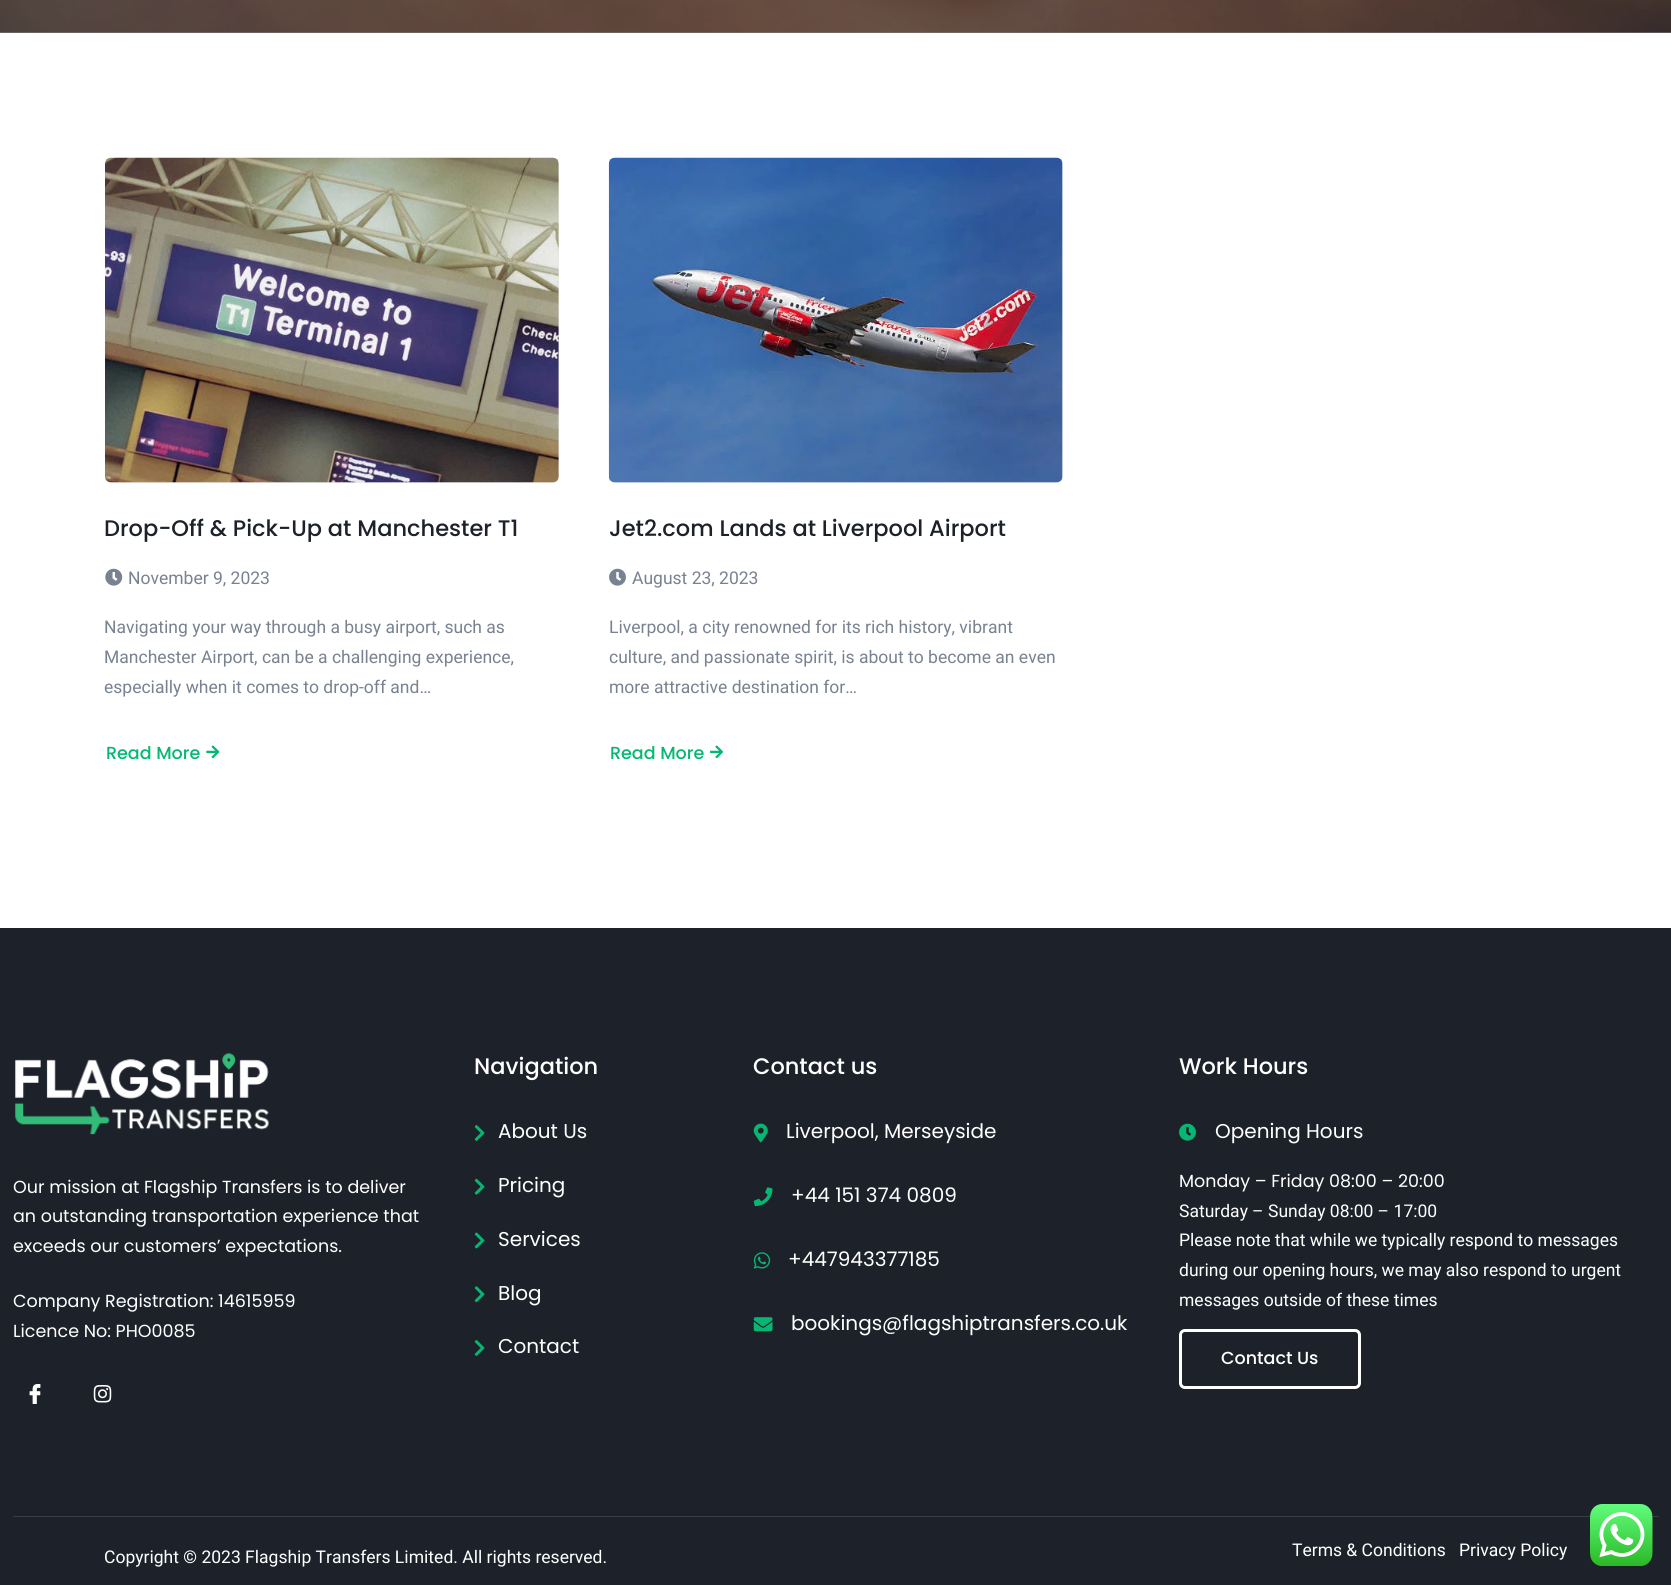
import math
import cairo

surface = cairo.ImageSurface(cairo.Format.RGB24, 1671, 1585)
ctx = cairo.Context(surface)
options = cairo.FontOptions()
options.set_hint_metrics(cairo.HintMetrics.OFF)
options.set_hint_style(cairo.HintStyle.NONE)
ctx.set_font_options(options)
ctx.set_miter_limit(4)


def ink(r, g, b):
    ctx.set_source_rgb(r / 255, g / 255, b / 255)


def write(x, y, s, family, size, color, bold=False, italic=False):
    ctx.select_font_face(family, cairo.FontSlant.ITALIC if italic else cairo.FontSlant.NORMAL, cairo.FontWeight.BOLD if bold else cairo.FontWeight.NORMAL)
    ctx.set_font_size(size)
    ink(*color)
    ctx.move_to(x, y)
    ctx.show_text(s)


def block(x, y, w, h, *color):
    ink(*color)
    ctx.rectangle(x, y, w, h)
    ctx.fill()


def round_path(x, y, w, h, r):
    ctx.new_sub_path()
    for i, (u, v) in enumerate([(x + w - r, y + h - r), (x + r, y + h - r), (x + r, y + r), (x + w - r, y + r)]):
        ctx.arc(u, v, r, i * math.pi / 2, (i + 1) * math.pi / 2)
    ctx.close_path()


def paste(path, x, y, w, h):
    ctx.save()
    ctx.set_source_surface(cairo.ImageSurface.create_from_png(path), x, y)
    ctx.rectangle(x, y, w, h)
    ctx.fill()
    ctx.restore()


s1 = dict(family="Poppins Medium", size=22.5, color=(29, 34, 42))
s2 = dict(family="Heebo", size=17.5, color=(121, 130, 144))
s3 = dict(family="Poppins Medium", size=17.5, color=(5, 183, 114))
s4 = dict(family="Poppins", size=17.5, color=(255, 255, 255))
s5 = dict(family="Poppins Medium", size=22.5, color=(255, 255, 255))
s6 = dict(family="Poppins", size=20, color=(255, 255, 255))
s7 = dict(family="Heebo", size=17.5, color=(255, 255, 255))
s8 = dict(family="Poppins Medium", size=17.5, color=(255, 255, 255))

ink(255, 255, 255)
ctx.paint()
block(0, 32, 1671, 1, 130, 130, 130)
paste("pic1.png", 0, 0, 1671, 33)
ink(234, 234, 235)
round_path(105, 158, 454, 325, 6)
ctx.fill()
paste("pic2.png", 105, 157, 454, 326)
write(104, 536, "Drop-Off & Pick-Up at Manchester T1", **s1)
paste("pic3.png", 105, 568, 18, 18)
write(128, 584, "November 9, 2023", **s2)
write(104, 633, "Navigating your way through a busy airport, such as", **s2)
write(104, 663, "Manchester Airport, can be a challenging experience,", **s2)
write(104, 693, "especially when it comes to drop-off and…", **s2)
write(106, 759, "Read More", **s3)
paste("pic4.png", 206, 745, 14, 14)
ink(234, 234, 235)
round_path(609, 158, 454, 325, 6)
ctx.fill()
paste("pic5.png", 608, 157, 455, 326)
write(609, 536, "Jet2.com Lands at Liverpool Airport", **s1)
paste("pic6.png", 609, 568, 17, 18)
write(632, 584, "August 23, 2023", **s2)
write(609, 633, "Liverpool, a city renowned for its rich history, vibrant", **s2)
write(609, 663, "culture, and passionate spirit, is about to become an even", **s2)
write(609, 693, "more attractive destination for…", **s2)
write(610, 759, "Read More", **s3)
paste("pic7.png", 710, 745, 14, 14)
block(0, 928, 1671, 657, 29, 34, 42)
paste("pic8.png", 15, 1053, 254, 82)
write(13, 1193, "Our mission at Flagship Transfers is to deliver", **s4)
write(13, 1222, "an outstanding transportation experience that", **s4)
write(13, 1252, "exceeds our customers’ expectations.", **s4)
write(13, 1307, "Company Registration: 14615959", **s4)
write(13, 1337, "Licence No: PHO0085", **s4)
paste("pic9.png", 29, 1384, 12, 20)
paste("pic10.png", 93, 1385, 19, 18)
write(474, 1074, "Navigation", **s5)
paste("pic11.png", 474, 1125, 11, 16)
write(498, 1138, "About Us", **s6)
paste("pic12.png", 474, 1178, 11, 17)
write(498, 1192, "Pricing", **s6)
paste("pic13.png", 474, 1232, 11, 17)
write(498, 1246, "Services", **s6)
paste("pic14.png", 474, 1286, 11, 17)
write(498, 1300, "Blog", **s6)
paste("pic11.png", 474, 1340, 11, 16)
write(498, 1353, "Contact", **s6)
write(753, 1074, "Contact us", **s5)
paste("pic15.png", 753, 1123, 15, 20)
write(786, 1138, "Liverpool, Merseyside", **s6)
paste("pic16.png", 753, 1187, 20, 20)
write(791, 1202, "+44 151 374 0809", **s6)
paste("pic17.png", 753, 1252, 18, 17)
write(788, 1266, "+447943377185", **s6)
paste("pic18.png", 753, 1317, 20, 15)
write(791, 1330, "bookings@flagshiptransfers.co.uk", **s6)
write(1179, 1074, "Work Hours", **s5)
paste("pic19.png", 1179, 1123, 17, 18)
write(1215, 1138, "Opening Hours", **s6)
write(1179, 1187, "Monday – Friday 08:00 – 20:00", **s4)
write(1179, 1217, "Saturday – Sunday 08:00 – 17:00", **s7)
write(1179, 1246, "Please note that while we typically respond to messages", **s7)
write(1179, 1276, "during our opening hours, we may also respond to urgent", **s7)
write(1179, 1306, "messages outside of these times", **s7)
round_path(1180.5, 1330.5, 179, 57, 4.5)
ctx.set_line_width(3)
ctx.stroke()
write(1221, 1364, "Contact Us", **s8)
block(13, 1516, 1646, 1, 57, 62, 68)
write(104, 1563, "Copyright © 2023 Flagship Transfers Limited. All rights reserved.", **s7)
write(1292, 1556, "Terms & Conditions", **s7)
write(1459, 1556, "Privacy Policy", **s7)
paste("pic20.png", 1590, 1504, 63, 62)
surface.write_to_png("screenshot.png")
